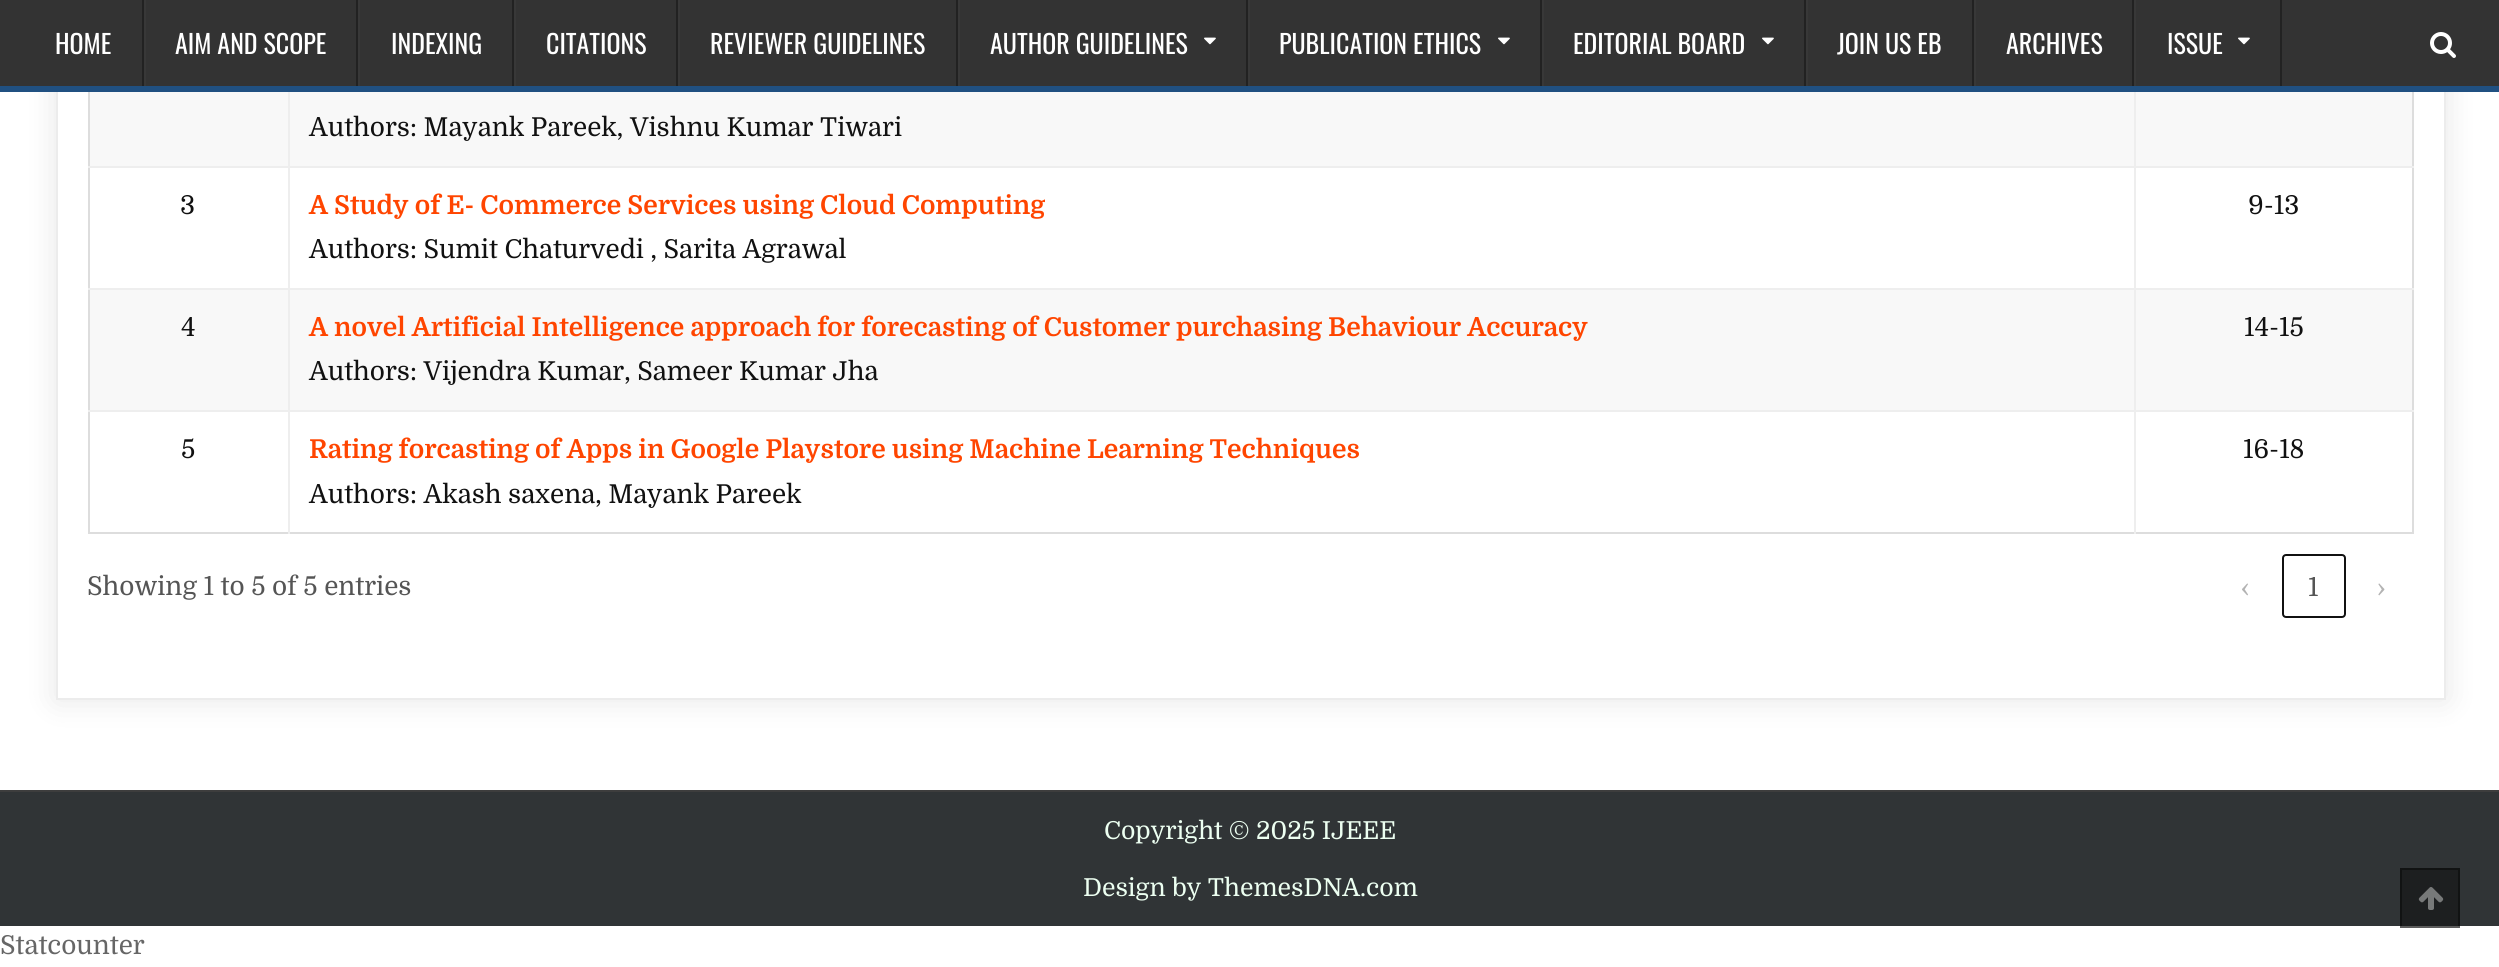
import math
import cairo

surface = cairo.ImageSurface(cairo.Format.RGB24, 2499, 967)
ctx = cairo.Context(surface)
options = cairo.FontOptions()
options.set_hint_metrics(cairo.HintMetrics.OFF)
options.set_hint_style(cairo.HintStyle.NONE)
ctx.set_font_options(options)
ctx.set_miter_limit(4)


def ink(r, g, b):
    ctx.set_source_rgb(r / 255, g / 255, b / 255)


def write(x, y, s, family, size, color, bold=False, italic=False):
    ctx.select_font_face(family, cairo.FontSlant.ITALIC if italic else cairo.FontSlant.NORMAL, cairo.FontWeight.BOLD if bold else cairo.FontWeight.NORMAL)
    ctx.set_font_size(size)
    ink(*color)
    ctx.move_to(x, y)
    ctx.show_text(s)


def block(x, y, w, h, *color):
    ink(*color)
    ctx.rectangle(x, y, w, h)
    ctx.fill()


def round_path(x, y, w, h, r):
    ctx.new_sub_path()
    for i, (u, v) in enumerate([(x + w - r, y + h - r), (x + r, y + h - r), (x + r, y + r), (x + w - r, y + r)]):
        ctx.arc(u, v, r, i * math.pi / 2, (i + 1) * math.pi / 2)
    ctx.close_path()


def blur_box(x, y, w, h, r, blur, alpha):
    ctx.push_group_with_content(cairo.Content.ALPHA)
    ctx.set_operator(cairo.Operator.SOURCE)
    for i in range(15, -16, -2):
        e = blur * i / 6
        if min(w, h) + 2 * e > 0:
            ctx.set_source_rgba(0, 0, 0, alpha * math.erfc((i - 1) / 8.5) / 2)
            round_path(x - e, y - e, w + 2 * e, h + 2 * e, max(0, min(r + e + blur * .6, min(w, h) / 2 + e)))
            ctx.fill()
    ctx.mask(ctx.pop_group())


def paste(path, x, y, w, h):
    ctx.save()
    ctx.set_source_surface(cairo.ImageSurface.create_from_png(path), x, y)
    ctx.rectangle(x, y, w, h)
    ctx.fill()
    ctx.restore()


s1 = dict(family="Oswald", size=26, color=(255, 255, 255))
s2 = dict(family="Domine", size=26, color=(17, 17, 17))
s3 = dict(family="Domine", size=26, color=(255, 69, 0), bold=True)
s4 = dict(family="Domine", size=26, color=(85, 85, 85))
s5 = dict(family="Domine", size=26, color=(179, 179, 179))
s6 = dict(family="Domine", size=24.75, color=(236, 255, 241))
s7 = dict(family="Domine", size=26, color=(102, 102, 102))

ink(255, 255, 255)
ctx.paint()
block(2400, 926, 60, 2, 153, 153, 153)
ctx.save()
ctx.set_fill_rule(cairo.FillRule.EVEN_ODD)
ctx.new_path()
ctx.move_to(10, 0)
ctx.line_to(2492, 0)
ctx.line_to(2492, 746)
ctx.line_to(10, 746)
ctx.close_path()
ctx.move_to(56, -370)
ctx.line_to(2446, -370)
ctx.line_to(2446, 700)
ctx.line_to(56, 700)
ctx.close_path()
ctx.clip()
ink(0, 0, 0)
blur_box(56, -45, 2390, 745, 0, 15, 0.1)
ctx.restore()
ctx.rectangle(57, -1, 2388, 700)
ink(236, 236, 236)
ctx.stroke()
block(0, 0, 2499, 86, 51, 51, 51)
block(0, 86, 2499, 6, 32, 80, 129)
block(142, 0, 2, 86, 34, 34, 34)
write(55, 54, "HOME", **s1)
block(356, 0, 2, 86, 34, 34, 34)
block(144, 0, 2, 86, 56, 56, 56)
write(175, 54, "AIM AND SCOPE", **s1)
block(512, 0, 2, 86, 34, 34, 34)
block(358, 0, 2, 86, 56, 56, 56)
write(391, 54, "INDEXING", **s1)
block(676, 0, 2, 86, 34, 34, 34)
block(514, 0, 2, 86, 56, 56, 56)
write(546, 54, "CITATIONS", **s1)
block(956, 0, 2, 86, 34, 34, 34)
block(678, 0, 2, 86, 56, 56, 56)
write(710, 54, "REVIEWER GUIDELINES", **s1)
block(1246, 0, 2, 86, 34, 34, 34)
block(958, 0, 2, 86, 56, 56, 56)
write(990, 54, "AUTHOR GUIDELINES", **s1)
paste("pic1.png", 1204, 37, 12, 8)
block(1540, 0, 2, 86, 34, 34, 34)
block(1248, 0, 2, 86, 56, 56, 56)
write(1279, 54, "PUBLICATION ETHICS", **s1)
paste("pic1.png", 1498, 37, 12, 8)
block(1804, 0, 2, 86, 34, 34, 34)
block(1542, 0, 2, 86, 56, 56, 56)
write(1573, 54, "EDITORIAL BOARD", **s1)
paste("pic1.png", 1762, 37, 12, 8)
block(1972, 0, 2, 86, 34, 34, 34)
block(1806, 0, 2, 86, 56, 56, 56)
write(1837, 54, "JOIN US EB", **s1)
block(2132, 0, 2, 86, 34, 34, 34)
block(1974, 0, 2, 86, 56, 56, 56)
write(2006, 54, "ARCHIVES", **s1)
block(2280, 0, 2, 86, 34, 34, 34)
block(2134, 0, 2, 86, 56, 56, 56)
write(2167, 54, "ISSUE", **s1)
paste("pic1.png", 2238, 37, 12, 8)
paste("pic2.png", 2430, 32, 26, 26)
block(2412, 92, 2, 442, 221, 221, 221)
block(88, 532, 2326, 2, 221, 221, 221)
block(88, 92, 2, 442, 221, 221, 221)
block(90, 92, 198, 74, 248, 248, 248)
block(290, 92, 1844, 74, 248, 248, 248)
write(309, 136, "Authors: Mayank Pareek, Vishnu Kumar Tiwari", **s2)
block(2136, 92, 276, 74, 248, 248, 248)
block(88, 166, 2326, 2, 238, 238, 238)
block(88, 288, 2326, 2, 238, 238, 238)
block(88, 410, 2326, 2, 238, 238, 238)
block(288, 410, 2, 124, 238, 238, 238)
block(288, 288, 2, 124, 238, 238, 238)
block(288, 92, 2, 198, 238, 238, 238)
write(180, 214, "3", **s2)
block(2134, 410, 2, 124, 238, 238, 238)
block(2134, 288, 2, 124, 238, 238, 238)
block(2134, 92, 2, 198, 238, 238, 238)
write(309, 214, "A Study of E- Commerce Services using Cloud Computing", **s3)
write(309, 258, "Authors: Sumit Chaturvedi , Sarita Agrawal", **s2)
write(2248, 214, "9-13", **s2)
block(90, 290, 198, 120, 248, 248, 248)
write(181, 336, "4", **s2)
block(290, 290, 1844, 120, 248, 248, 248)
write(309, 336, "A novel Artificial Intelligence approach for forecasting of Customer purchasing Behaviour Accuracy", **s3)
write(309, 380, "Authors: Vijendra Kumar, Sameer Kumar Jha", **s2)
block(2136, 290, 276, 120, 248, 248, 248)
write(2244, 336, "14-15", **s2)
write(181, 458, "5", **s2)
write(309, 458, "Rating forcasting of Apps in Google Playstore using Machine Learning Techniques", **s3)
write(309, 503, "Authors: Akash saxena, Mayank Pareek", **s2)
write(2243, 458, "16-18", **s2)
write(87, 595, "Showing 1 to 5 of 5 entries", **s4)
write(2241, 596, "‹", **s5)
round_path(2283, 555, 62, 62, 3)
ink(17, 17, 17)
ctx.stroke()
write(2308, 596, "1", **s4)
write(2377, 596, "›", **s5)
block(0, 792, 2499, 134, 48, 52, 54)
block(2400, 868, 60, 58, 29, 31, 32)
block(0, 790, 2499, 2, 61, 61, 61)
write(1104, 839, "Copyright © 2025 IJEEE", **s6)
write(1083, 896, "Design by ThemesDNA.com", **s6)
ctx.rectangle(2401, 869, 58, 58)
ctx.set_source_rgba(0, 0, 0, 0.4)
ctx.stroke()
paste("pic3.png", 2418, 887, 26, 23)
write(0, 954, "Statcounter", **s7)
surface.write_to_png("screenshot.png")
